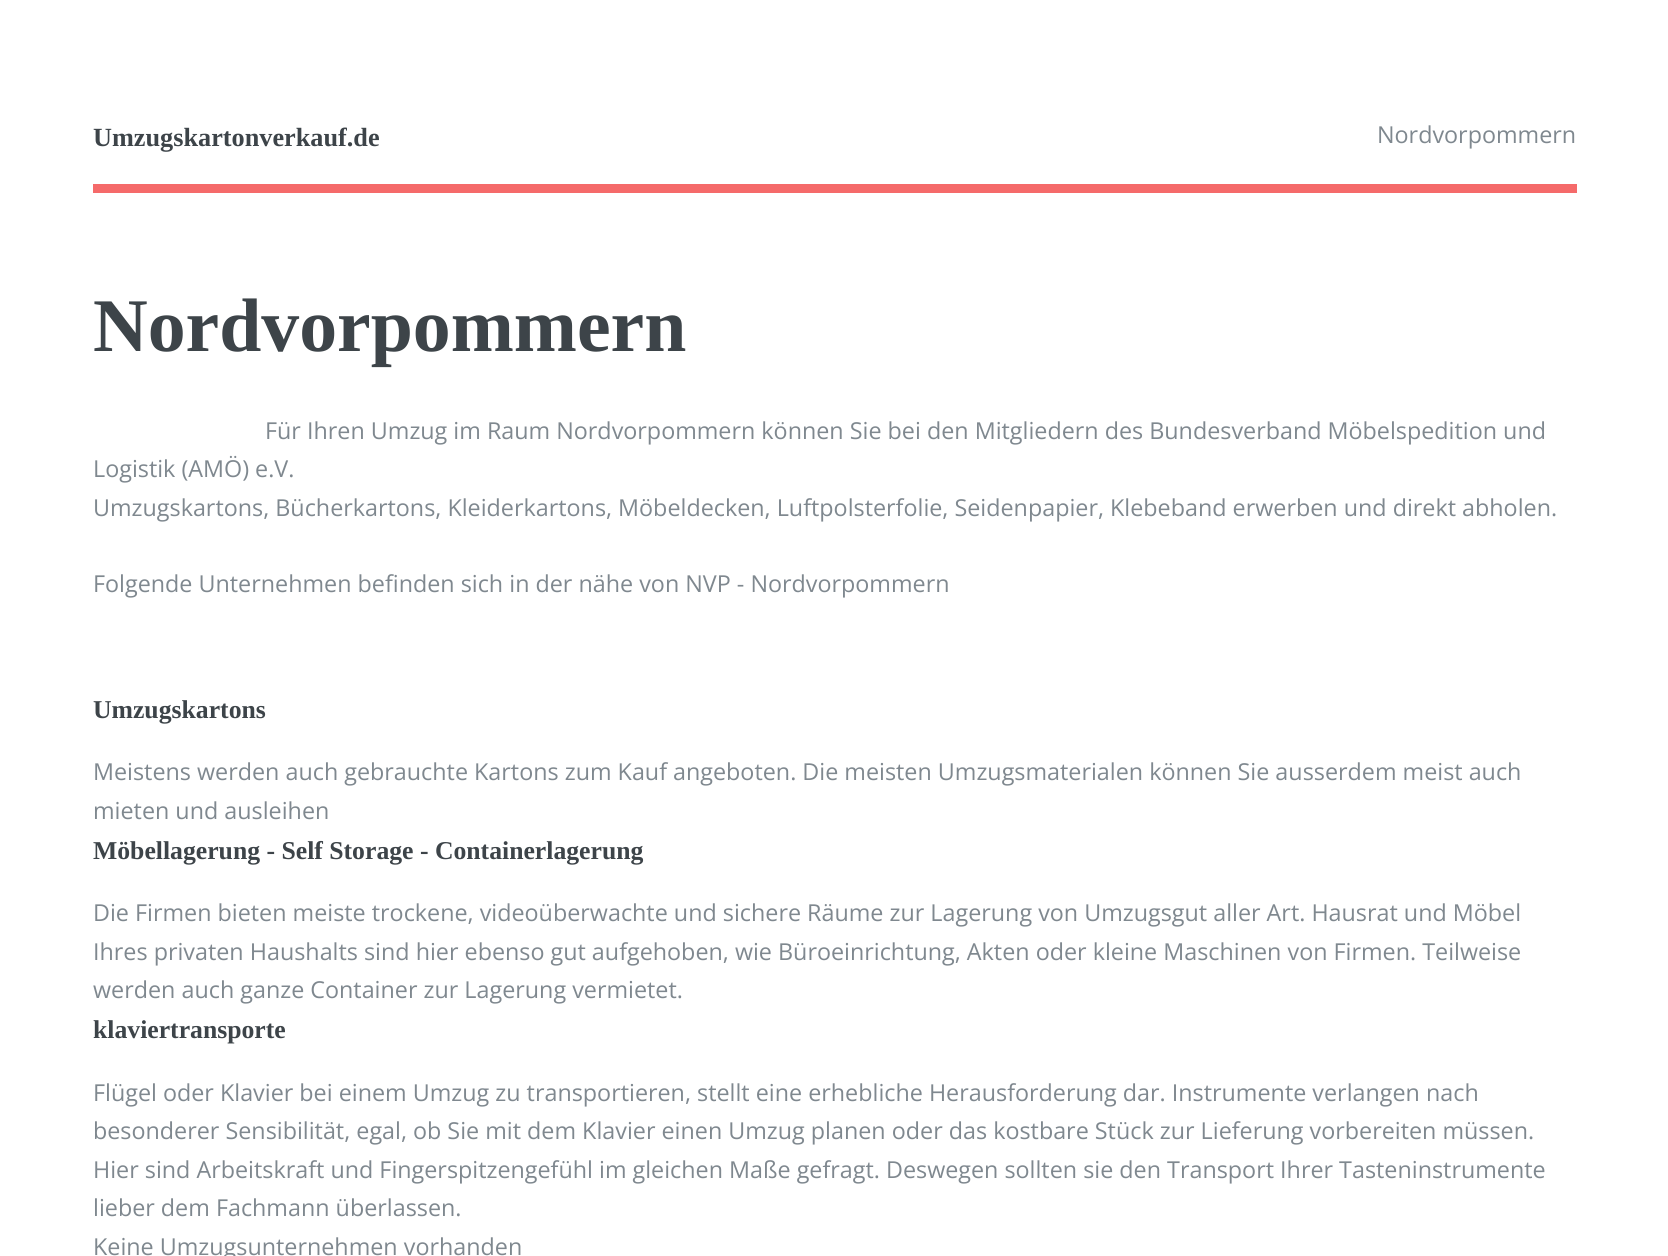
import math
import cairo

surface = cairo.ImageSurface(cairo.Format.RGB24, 1668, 1256)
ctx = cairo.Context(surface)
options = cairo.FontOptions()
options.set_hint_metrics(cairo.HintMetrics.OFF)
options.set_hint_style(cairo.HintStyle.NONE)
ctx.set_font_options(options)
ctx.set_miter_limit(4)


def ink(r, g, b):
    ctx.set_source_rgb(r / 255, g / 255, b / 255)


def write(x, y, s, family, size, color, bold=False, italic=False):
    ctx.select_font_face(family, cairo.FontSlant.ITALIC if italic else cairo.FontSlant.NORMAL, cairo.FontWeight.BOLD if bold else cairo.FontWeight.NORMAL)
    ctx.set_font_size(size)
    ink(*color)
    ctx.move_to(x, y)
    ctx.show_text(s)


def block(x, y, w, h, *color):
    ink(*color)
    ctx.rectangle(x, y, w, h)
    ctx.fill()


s1 = dict(family="Liberation Serif", size=26.25, color=(61, 68, 73), bold=True)
s2 = dict(family="Open Sans", size=23.33, color=(127, 136, 143))
s3 = dict(family="Liberation Serif", size=75.75, color=(61, 68, 73), bold=True)
s4 = dict(family="Liberation Serif", size=25.7, color=(61, 68, 73), bold=True)

ink(255, 255, 255)
ctx.paint()
block(93, 184, 1484, 9, 245, 106, 106)
write(93, 146, "Umzugskartonverkauf.de", **s1)
write(1377, 143, "Nordvorpommern", **s2)
write(93, 351, "Nordvorpommern", **s3)
write(265, 439, "Für Ihren Umzug im Raum Nordvorpommern können Sie bei den Mitgliedern des Bundesverband Möbelspedition und", **s2)
write(93, 477, "Logistik (AMÖ) e.V.", **s2)
write(93, 516, "Umzugskartons, Bücherkartons, Kleiderkartons, Möbeldecken, Luftpolsterfolie, Seidenpapier, Klebeband erwerben und direkt abholen.", **s2)
write(93, 592, "Folgende Unternehmen befinden sich in der nähe von NVP - Nordvorpommern", **s2)
write(93, 718, "Umzugskartons", **s4)
write(93, 780, "Meistens werden auch gebrauchte Kartons zum Kauf angeboten. Die meisten Umzugsmaterialen können Sie ausserdem meist auch", **s2)
write(93, 819, "mieten und ausleihen", **s2)
write(93, 859, "Möbellagerung - Self Storage - Containerlagerung", **s4)
write(93, 921, "Die Firmen bieten meiste trockene, videoüberwachte und sichere Räume zur Lagerung von Umzugsgut aller Art. Hausrat und Möbel", **s2)
write(93, 960, "Ihres privaten Haushalts sind hier ebenso gut aufgehoben, wie Büroeinrichtung, Akten oder kleine Maschinen von Firmen. Teilweise", **s2)
write(93, 998, "werden auch ganze Container zur Lagerung vermietet.", **s2)
write(93, 1038, "klaviertransporte", **s4)
write(93, 1101, "Flügel oder Klavier bei einem Umzug zu transportieren, stellt eine erhebliche Herausforderung dar. Instrumente verlangen nach", **s2)
write(93, 1139, "besonderer Sensibilität, egal, ob Sie mit dem Klavier einen Umzug planen oder das kostbare Stück zur Lieferung vorbereiten müssen.", **s2)
write(93, 1178, "Hier sind Arbeitskraft und Fingerspitzengefühl im gleichen Maße gefragt. Deswegen sollten sie den Transport Ihrer Tasteninstrumente", **s2)
write(93, 1216, "lieber dem Fachmann überlassen.", **s2)
write(93, 1255, "Keine Umzugsunternehmen vorhanden", **s2)
surface.write_to_png("screenshot.png")
